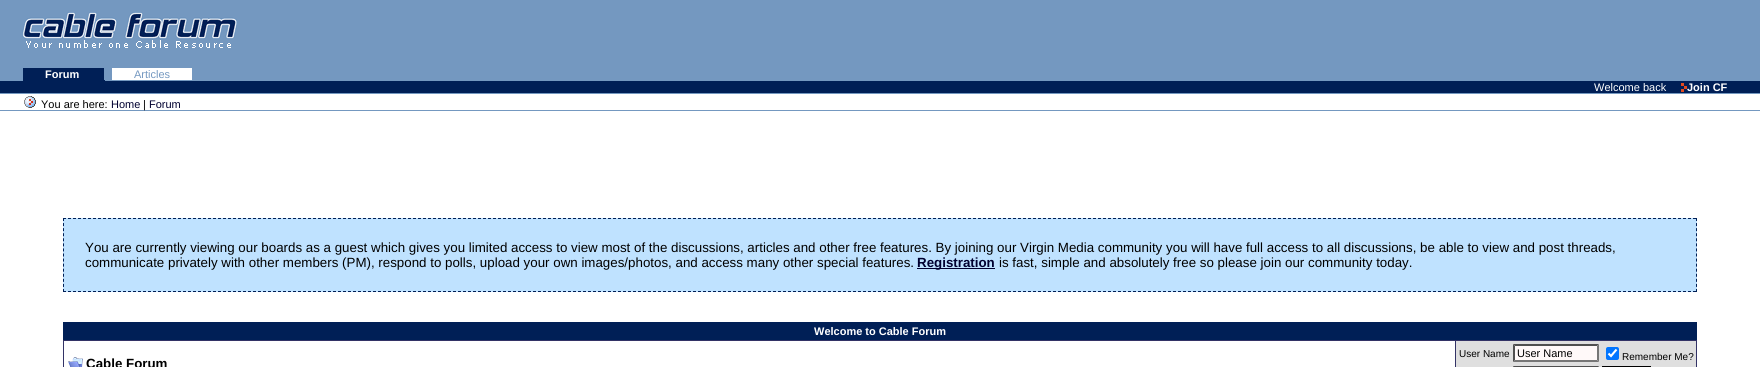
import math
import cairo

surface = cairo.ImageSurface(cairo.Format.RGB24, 1760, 367)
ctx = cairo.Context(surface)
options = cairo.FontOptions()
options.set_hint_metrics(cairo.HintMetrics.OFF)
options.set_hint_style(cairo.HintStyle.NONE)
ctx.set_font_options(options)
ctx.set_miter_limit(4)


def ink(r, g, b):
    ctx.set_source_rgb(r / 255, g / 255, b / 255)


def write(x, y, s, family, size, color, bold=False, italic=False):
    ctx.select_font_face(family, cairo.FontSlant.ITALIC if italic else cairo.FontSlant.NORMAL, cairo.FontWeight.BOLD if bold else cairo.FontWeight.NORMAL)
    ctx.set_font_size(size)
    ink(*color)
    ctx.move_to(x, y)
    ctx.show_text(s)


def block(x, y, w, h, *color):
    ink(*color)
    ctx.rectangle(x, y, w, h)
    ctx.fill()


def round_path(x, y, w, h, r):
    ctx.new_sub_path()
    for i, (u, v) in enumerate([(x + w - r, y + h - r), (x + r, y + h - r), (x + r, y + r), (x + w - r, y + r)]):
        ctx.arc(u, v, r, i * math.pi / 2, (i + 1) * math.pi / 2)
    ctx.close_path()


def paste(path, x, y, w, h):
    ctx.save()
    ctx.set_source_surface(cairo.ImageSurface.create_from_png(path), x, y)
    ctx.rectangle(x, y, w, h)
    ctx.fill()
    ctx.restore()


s1 = dict(family="Liberation Sans", size=11, color=(255, 255, 255), bold=True)
s2 = dict(family="Liberation Sans", size=11, color=(116, 152, 192))
s3 = dict(family="Liberation Sans", size=11, color=(255, 255, 255))
s4 = dict(family="Liberation Sans", size=11, color=(0, 0, 0))
s5 = dict(family="Liberation Sans", size=11, color=(0, 0, 48))
s6 = dict(family="Liberation Sans", size=13.33, color=(0, 0, 0))
s7 = dict(family="Liberation Sans", size=13.33, color=(0, 0, 48), bold=True)
s8 = dict(family="Liberation Sans", size=10, color=(0, 0, 0))
s9 = dict(family="Liberation Sans", size=13.33, color=(0, 0, 0), bold=True)

ink(255, 255, 255)
ctx.paint()
block(0, 0, 1760, 81, 116, 152, 192)
paste("pic1.png", 22, 12, 215, 36)
block(23, 68, 81, 12, 0, 31, 86)
write(45, 78, "Forum", **s1)
block(22, 80, 83, 1, 0, 31, 86)
block(22, 80, 1, 1, 116, 152, 192)
block(112, 68, 80, 12, 255, 255, 255)
write(134, 78, "Articles", **s2)
block(0, 81, 1760, 12, 0, 31, 86)
block(0, 93, 1760, 1, 116, 152, 192)
write(1594, 91, "Welcome back", **s3)
paste("pic2.png", 1681, 83, 6, 9)
write(1687, 91, "Join CF", **s1)
block(0, 110, 1760, 1, 116, 152, 192)
paste("pic3.png", 24, 96, 12, 12)
write(41, 108, "You are here:", **s4)
write(111, 108, "Home", **s5)
write(143, 108, "|", **s4)
write(149, 108, "Forum", **s5)
block(63, 218, 1634, 74, 191, 226, 255)
ctx.new_path()
ctx.move_to(63, 218.5)
ctx.line_to(1697, 218.5)
ink(0, 31, 86)
ctx.set_line_width(1)
ctx.set_dash([3, 2])
ctx.stroke()
ctx.new_path()
ctx.move_to(1696.5, 218)
ctx.line_to(1696.5, 292)
ctx.set_dash([3, 2.07])
ctx.stroke()
ctx.new_path()
ctx.move_to(63, 291.5)
ctx.line_to(1697, 291.5)
ctx.set_dash([3, 2])
ctx.stroke()
ctx.new_path()
ctx.move_to(63.5, 218)
ctx.line_to(63.5, 292)
ctx.set_dash([3, 2.07])
ctx.stroke()
write(85, 252, "You are currently viewing our boards as a guest which gives you limited access to view most of the discussions, articles and other free features. By joining our Virgin Media community you will have full access to all discussions, be able to view and post threads,", **s6)
write(85, 267, "communicate privately with other members (PM), respond to polls, upload your own images/photos, and access many other special features.", **s6)
block(917, 268, 78, 1, 0, 0, 48)
write(917, 267, "Registration", **s7)
write(999, 267, "is fast, simple and absolutely free so please join our community today.", **s6)
block(63, 322, 1634, 18, 0, 31, 86)
write(814, 335, "Welcome to Cable Forum", **s1)
block(63, 340, 1634, 27, 51, 51, 102)
block(1456, 341, 240, 26, 223, 223, 223)
write(1459, 357, "User Name", **s8)
block(1513, 344, 86, 18, 255, 249, 249)
ink(79, 79, 79)
ctx.new_path()
ctx.move_to(1513, 344)
ctx.line_to(1599, 344)
ctx.line_to(1597, 346)
ctx.line_to(1515, 346)
ctx.close_path()
ctx.fill()
ink(118, 118, 118)
ctx.new_path()
ctx.move_to(1599, 344)
ctx.line_to(1599, 362)
ctx.line_to(1597, 360)
ctx.line_to(1597, 346)
ctx.close_path()
ctx.fill()
ctx.new_path()
ctx.move_to(1599, 362)
ctx.line_to(1513, 362)
ctx.line_to(1515, 360)
ctx.line_to(1597, 360)
ctx.close_path()
ctx.fill()
ink(79, 79, 79)
ctx.new_path()
ctx.move_to(1513, 362)
ctx.line_to(1513, 344)
ctx.line_to(1515, 346)
ctx.line_to(1515, 360)
ctx.close_path()
ctx.fill()
write(1517, 357, "User Name", **s4)
ink(0, 117, 255)
round_path(1606, 347, 13, 13, 2)
ctx.fill()
ctx.new_path()
ctx.move_to(1608.5, 353.5)
ctx.line_to(1611, 356)
ctx.line_to(1616.5, 349.5)
ink(255, 255, 255)
ctx.set_line_width(2.1)
ctx.set_dash([])
ctx.stroke()
write(1622, 360, "Remember Me?", **s8)
ink(79, 79, 79)
ctx.new_path()
ctx.move_to(1513, 366)
ctx.line_to(1599, 366)
ctx.line_to(1597, 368)
ctx.line_to(1515, 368)
ctx.close_path()
ctx.fill()
ink(118, 118, 118)
ctx.new_path()
ctx.move_to(1599, 366)
ctx.line_to(1599, 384)
ctx.line_to(1597, 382)
ctx.line_to(1597, 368)
ctx.close_path()
ctx.fill()
ink(79, 79, 79)
ctx.new_path()
ctx.move_to(1513, 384)
ctx.line_to(1513, 366)
ctx.line_to(1515, 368)
ctx.line_to(1515, 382)
ctx.close_path()
ctx.fill()
ctx.rectangle(1603, 367, 47, 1)
ink(0, 0, 0)
ctx.set_line_width(2)
ctx.stroke()
block(64, 341, 1391, 26, 255, 255, 255)
paste("pic4.png", 68, 357, 15, 10)
write(86, 368, "Cable Forum", **s9)
surface.write_to_png("screenshot.png")
